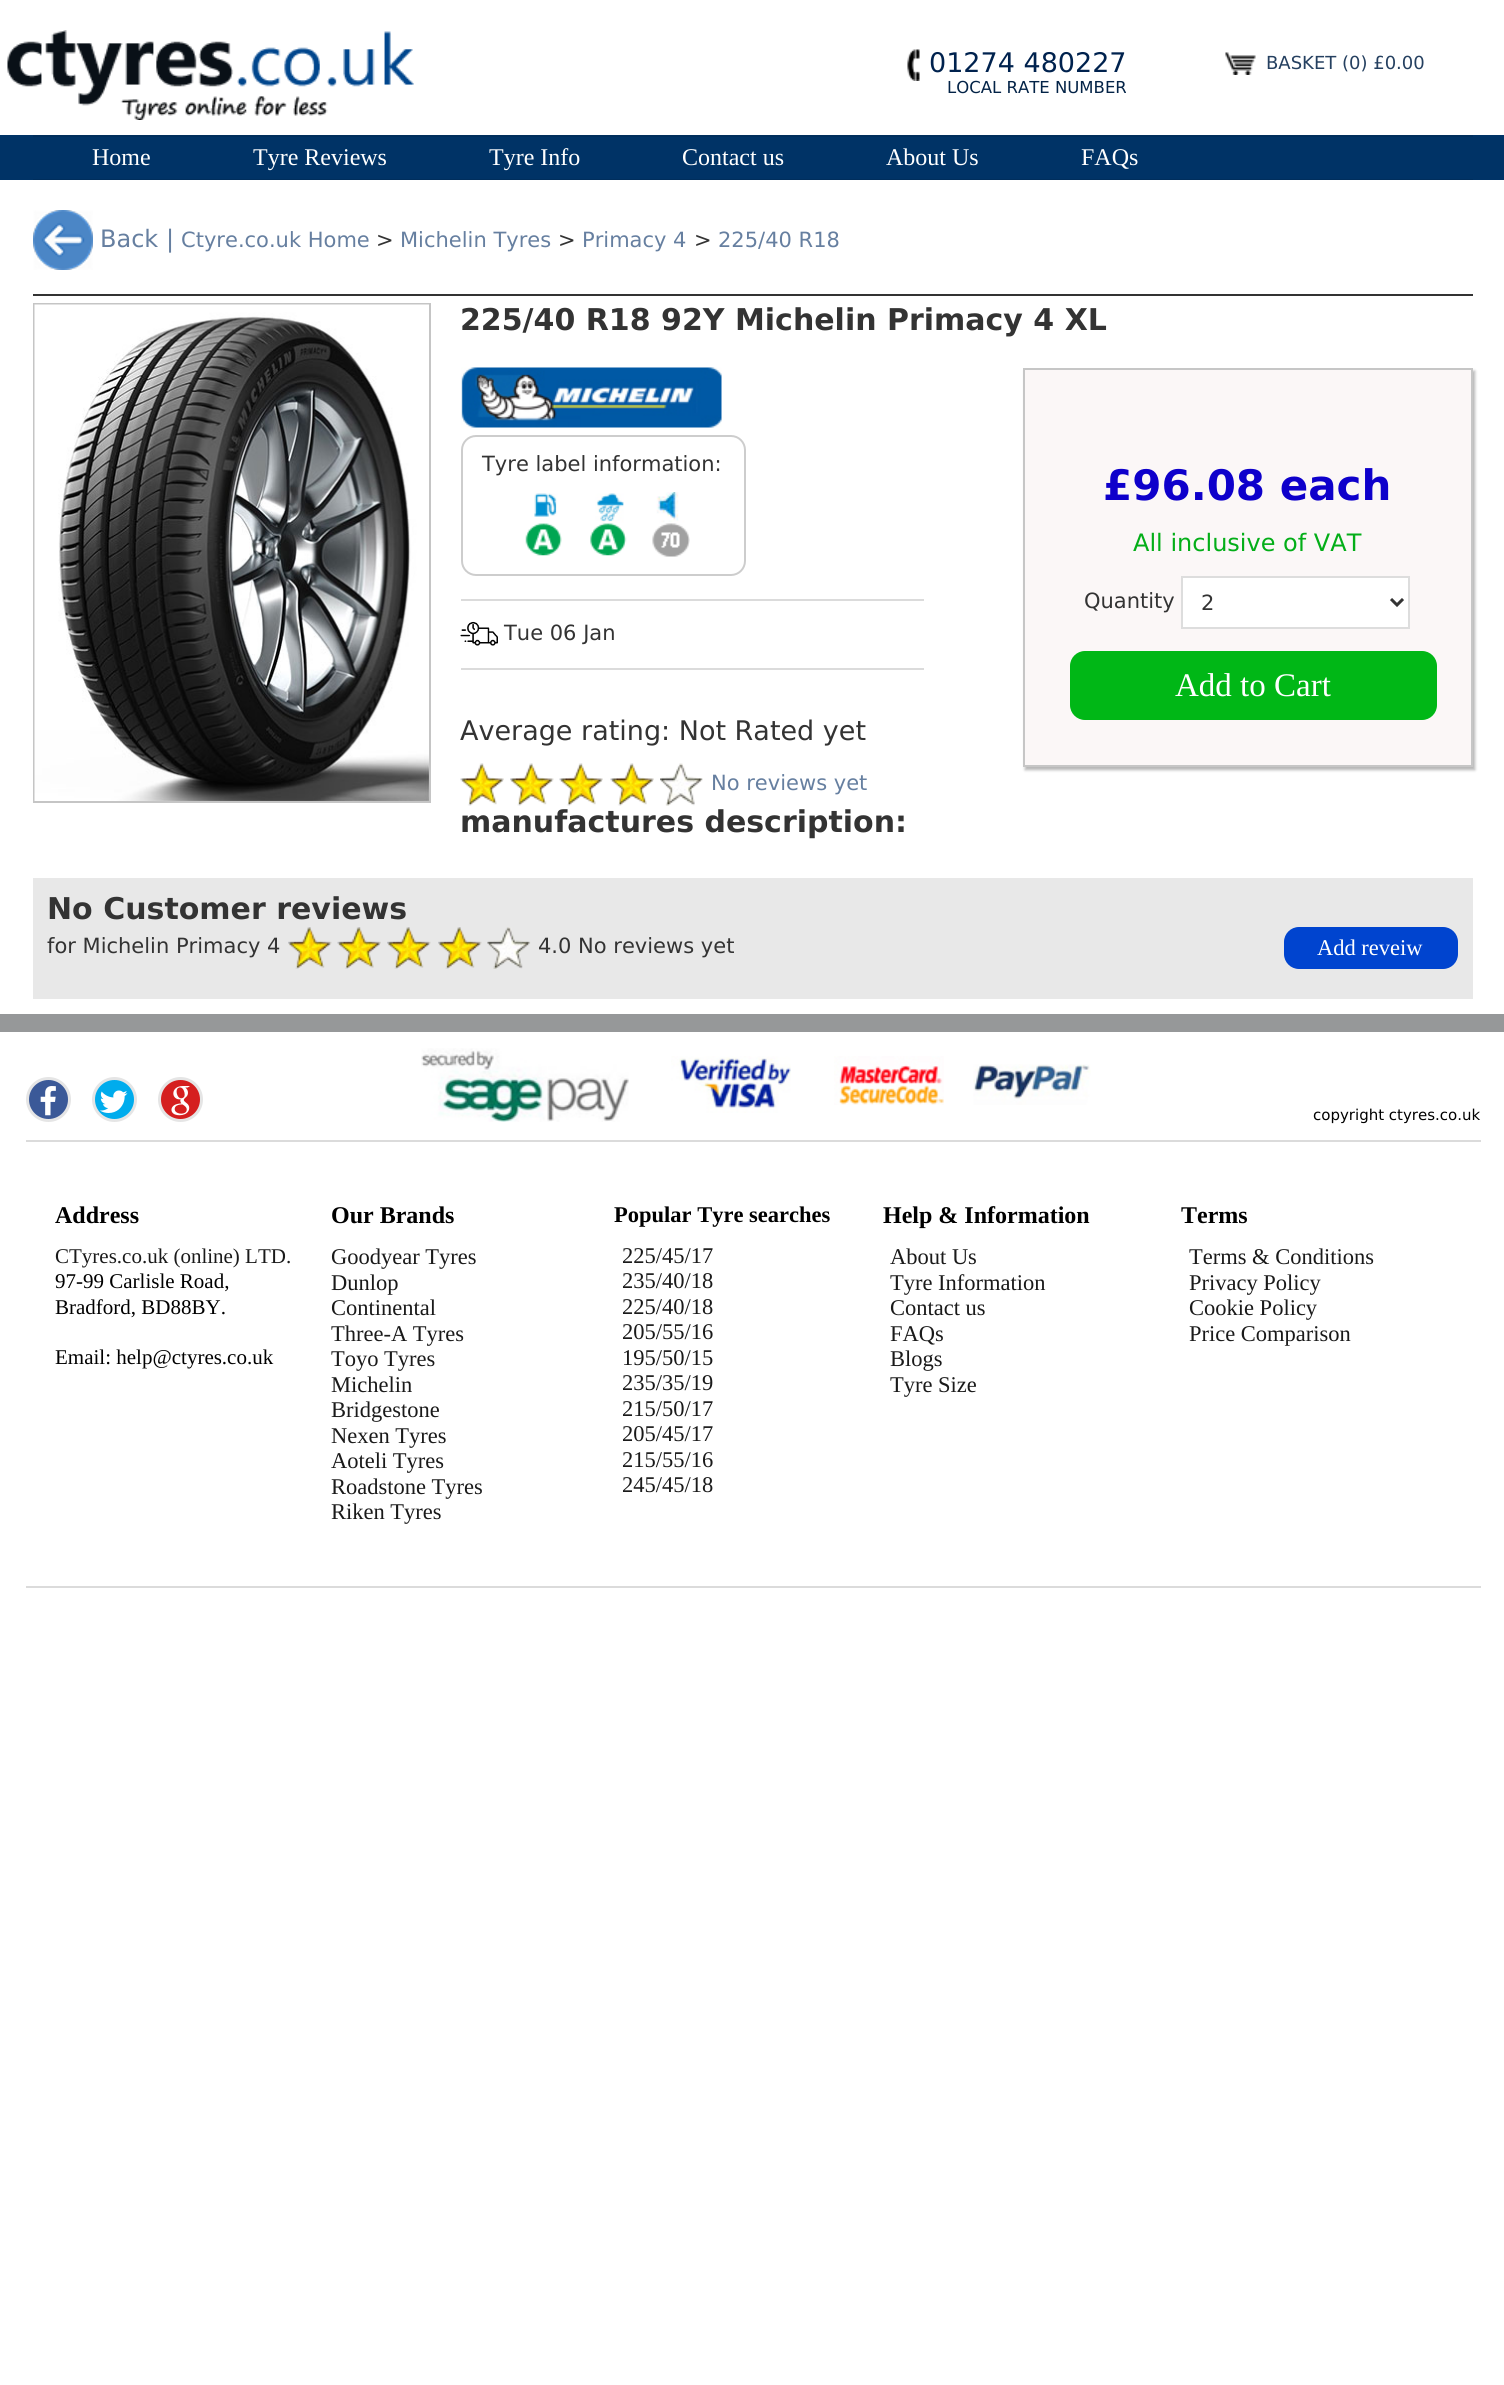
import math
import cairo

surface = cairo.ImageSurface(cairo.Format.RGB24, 1504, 2385)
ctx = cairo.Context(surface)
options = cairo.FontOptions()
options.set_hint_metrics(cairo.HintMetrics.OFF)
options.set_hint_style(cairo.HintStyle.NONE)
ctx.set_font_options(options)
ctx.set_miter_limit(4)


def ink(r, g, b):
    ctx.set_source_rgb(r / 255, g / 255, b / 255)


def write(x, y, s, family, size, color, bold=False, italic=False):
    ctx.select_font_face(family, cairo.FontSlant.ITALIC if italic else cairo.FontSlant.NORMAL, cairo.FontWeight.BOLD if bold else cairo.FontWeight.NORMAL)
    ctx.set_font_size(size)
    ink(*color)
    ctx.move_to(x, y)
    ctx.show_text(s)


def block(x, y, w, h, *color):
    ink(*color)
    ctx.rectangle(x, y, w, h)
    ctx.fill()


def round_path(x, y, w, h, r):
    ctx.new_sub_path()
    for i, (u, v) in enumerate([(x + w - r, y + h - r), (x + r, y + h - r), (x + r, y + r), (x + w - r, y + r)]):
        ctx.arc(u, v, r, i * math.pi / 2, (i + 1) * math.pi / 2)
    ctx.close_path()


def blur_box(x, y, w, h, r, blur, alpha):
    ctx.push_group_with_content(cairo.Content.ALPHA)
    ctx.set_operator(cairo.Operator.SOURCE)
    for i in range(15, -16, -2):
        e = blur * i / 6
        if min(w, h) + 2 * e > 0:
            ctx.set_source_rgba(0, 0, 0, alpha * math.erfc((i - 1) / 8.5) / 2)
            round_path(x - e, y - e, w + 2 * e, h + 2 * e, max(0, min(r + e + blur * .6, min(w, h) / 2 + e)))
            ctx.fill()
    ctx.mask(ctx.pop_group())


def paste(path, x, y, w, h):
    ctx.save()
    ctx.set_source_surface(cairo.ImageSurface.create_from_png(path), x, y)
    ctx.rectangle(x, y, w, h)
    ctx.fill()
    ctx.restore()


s1 = dict(family="DejaVu Sans", size=27, color=(0, 34, 78))
s2 = dict(family="DejaVu Sans", size=16.5, color=(3, 35, 71))
s3 = dict(family="DejaVu Sans", size=18, color=(37, 64, 96))
s4 = dict(family="Liberation Serif", size=24, color=(255, 255, 255))
s5 = dict(family="DejaVu Sans", size=24, color=(102, 127, 160))
s6 = dict(family="DejaVu Sans", size=21, color=(102, 127, 160))
s7 = dict(family="DejaVu Sans", size=21, color=(51, 51, 51))
s8 = dict(family="DejaVu Sans", size=30, color=(51, 51, 51), bold=True)
s9 = dict(family="DejaVu Sans", size=27, color=(51, 51, 51))
s10 = dict(family="DejaVu Sans", size=42, color=(14, 0, 203), bold=True)
s11 = dict(family="DejaVu Sans", size=24, color=(3, 174, 24))
s12 = dict(family="Liberation Serif", size=33, color=(255, 255, 255))
s13 = dict(family="Liberation Serif", size=22.5, color=(255, 255, 255))
s14 = dict(family="DejaVu Sans", size=15, color=(0, 0, 0))
s15 = dict(family="Liberation Serif", size=24, color=(0, 0, 0), bold=True)
s16 = dict(family="Liberation Serif", size=21, color=(26, 26, 26))
s17 = dict(family="Liberation Serif", size=21, color=(0, 0, 0))
s18 = dict(family="Liberation Serif", size=22.5, color=(26, 26, 26))
s19 = dict(family="Liberation Serif", size=22.5, color=(0, 0, 0), bold=True)

ink(255, 255, 255)
ctx.paint()
paste("pic1.png", 7, 30, 407, 90)
paste("pic2.png", 907, 49, 13, 32)
write(929, 72, "01274 480227", **s1)
write(947, 93, "LOCAL RATE NUMBER", **s2)
paste("pic3.png", 1225, 52, 31, 23)
write(1266, 69, "BASKET (0) £0.00", **s3)
block(0, 135, 1504, 45, 0, 51, 102)
block(33, 179, 1440, 1, 0, 46, 92)
block(33, 135, 1440, 2, 0, 46, 92)
write(92, 165, "Home", **s4)
write(253, 165, "Tyre Reviews", **s4)
write(489, 165, "Tyre Info", **s4)
write(682, 165, "Contact us", **s4)
write(886, 165, "About Us", **s4)
write(1081, 165, "FAQs", **s4)
paste("pic4.png", 33, 210, 60, 60)
write(100, 247, "Back |", **s5)
write(181, 247, "Ctyre.co.uk Home", **s6)
write(376, 247, ">", **s7)
write(400, 247, "Michelin Tyres", **s6)
write(558, 247, ">", **s7)
write(582, 247, "Primacy 4", **s6)
write(694, 247, ">", **s7)
write(718, 247, "225/40 R18", **s6)
block(33, 294, 1440, 2, 51, 51, 51)
ctx.rectangle(34, 304, 396, 498)
ink(197, 197, 197)
ctx.stroke()
paste("pic5.png", 34, 304, 395, 497)
write(460, 330, "225/40 R18 92Y Michelin Primacy 4 XL", **s8)
paste("pic6.png", 461, 367, 261, 61)
round_path(462, 436, 283, 139, 14)
ink(205, 205, 205)
ctx.stroke()
write(482, 471, "Tyre label information:", **s7)
paste("pic7.png", 525, 493, 37, 63)
paste("pic8.png", 590, 493, 37, 63)
paste("pic9.png", 652, 492, 38, 65)
block(461, 599, 463, 2, 219, 219, 219)
paste("pic10.png", 460, 621, 38, 25)
write(504, 640, "Tue 06 Jan", **s7)
block(461, 668, 463, 2, 219, 219, 219)
write(460, 740, "Average rating: Not Rated yet", **s9)
paste("pic11.png", 460, 763, 44, 43)
paste("pic12.png", 510, 763, 44, 43)
paste("pic13.png", 559, 763, 44, 43)
paste("pic13.png", 610, 763, 44, 43)
paste("pic14.png", 660, 763, 43, 43)
write(711, 790, "No reviews yet", **s6)
ink(0, 0, 0)
blur_box(1025, 371, 450, 399, 0, 1.5, 0.29)
ink(251, 247, 247)
ctx.rectangle(1024, 369, 448, 397)
ctx.fill_preserve()
ink(198, 198, 198)
ctx.stroke()
write(1103, 500, "£96.08 each", **s10)
write(1133, 551, "All inclusive of VAT", **s11)
write(1084, 608, "Quantity", **s7)
ink(255, 255, 255)
ctx.rectangle(1182, 577, 227, 51)
ctx.fill_preserve()
ink(221, 221, 221)
ctx.stroke()
ctx.new_path()
ctx.move_to(1391, 599)
ctx.line_to(1397, 605)
ctx.line_to(1403, 599)
ink(51, 51, 51)
ctx.set_line_width(3)
ctx.stroke()
write(1201, 610, "2", **s7)
ink(0, 183, 22)
round_path(1070, 651, 367, 69, 15)
ctx.fill()
write(1175, 696, "Add to Cart", **s12)
write(460, 832, "manufactures description:", **s8)
block(33, 878, 1440, 121, 232, 232, 232)
write(47, 919, "No Customer reviews", **s8)
write(47, 953, "for Michelin Primacy 4", **s7)
paste("pic15.png", 288, 927, 44, 42)
paste("pic16.png", 337, 927, 44, 42)
paste("pic15.png", 387, 927, 44, 42)
paste("pic15.png", 438, 927, 44, 42)
paste("pic17.png", 487, 927, 44, 42)
write(538, 953, "4.0 No reviews yet", **s7)
ink(0, 68, 207)
round_path(1284, 927, 174, 42, 15)
ctx.fill()
write(1317, 955, "Add reveiw", **s13)
block(0, 1014, 1504, 18, 150, 152, 153)
ink(59, 89, 152)
ctx.new_path()
ctx.arc(48.5, 1099.5, 21, 0, 2 * math.pi)
ctx.fill_preserve()
ink(229, 229, 229)
ctx.stroke()
paste("pic18.png", 40, 1086, 16, 30)
ink(0, 172, 237)
ctx.arc(114.5, 1099.5, 21, 0, 2 * math.pi)
ctx.fill_preserve()
ink(229, 229, 229)
ctx.stroke()
paste("pic19.png", 100, 1090, 28, 23)
ink(213, 31, 31)
ctx.arc(180.5, 1099.5, 21, 0, 2 * math.pi)
ctx.fill_preserve()
ink(229, 229, 229)
ctx.stroke()
paste("pic20.png", 171, 1086, 19, 30)
paste("pic21.png", 421, 1048, 208, 74)
paste("pic22.png", 671, 1056, 120, 57)
paste("pic23.png", 834, 1056, 110, 49)
paste("pic24.png", 973, 1064, 118, 41)
write(1313, 1120, "copyright ctyres.co.uk", **s14)
block(26, 1140, 1455, 2, 219, 219, 219)
write(55, 1223, "Address", **s15)
write(55, 1263, "CTyres.co.uk (online) LTD.", **s16)
write(55, 1288, "97-99 Carlisle Road,", **s17)
write(55, 1314, "Bradford, BD88BY.", **s17)
write(55, 1364, "Email: help@ctyres.co.uk", **s17)
write(331, 1223, "Our Brands", **s15)
write(331, 1264, "Goodyear Tyres", **s18)
write(331, 1290, "Dunlop", **s18)
write(331, 1315, "Continental", **s18)
write(331, 1341, "Three-A Tyres", **s18)
write(331, 1366, "Toyo Tyres", **s18)
write(331, 1392, "Michelin", **s18)
write(331, 1417, "Bridgestone", **s18)
write(331, 1443, "Nexen Tyres", **s18)
write(331, 1468, "Aoteli Tyres", **s18)
write(331, 1494, "Roadstone Tyres", **s18)
write(331, 1519, "Riken Tyres", **s18)
write(614, 1222, "Popular Tyre searches", **s19)
write(622, 1263, "225/45/17", **s18)
write(622, 1288, "235/40/18", **s18)
write(622, 1314, "225/40/18", **s18)
write(622, 1339, "205/55/16", **s18)
write(622, 1365, "195/50/15", **s18)
write(622, 1390, "235/35/19", **s18)
write(622, 1416, "215/50/17", **s18)
write(622, 1441, "205/45/17", **s18)
write(622, 1467, "215/55/16", **s18)
write(622, 1492, "245/45/18", **s18)
write(883, 1223, "Help & Information", **s15)
write(890, 1264, "About Us", **s18)
write(890, 1290, "Tyre Information", **s18)
write(890, 1315, "Contact us", **s18)
write(890, 1341, "FAQs", **s18)
write(890, 1366, "Blogs", **s18)
write(890, 1392, "Tyre Size", **s18)
write(1181, 1223, "Terms", **s15)
write(1189, 1264, "Terms & Conditions", **s18)
write(1189, 1290, "Privacy Policy", **s18)
write(1189, 1315, "Cookie Policy", **s18)
write(1189, 1341, "Price Comparison", **s18)
block(26, 1586, 1455, 2, 219, 219, 219)
surface.write_to_png("screenshot.png")
